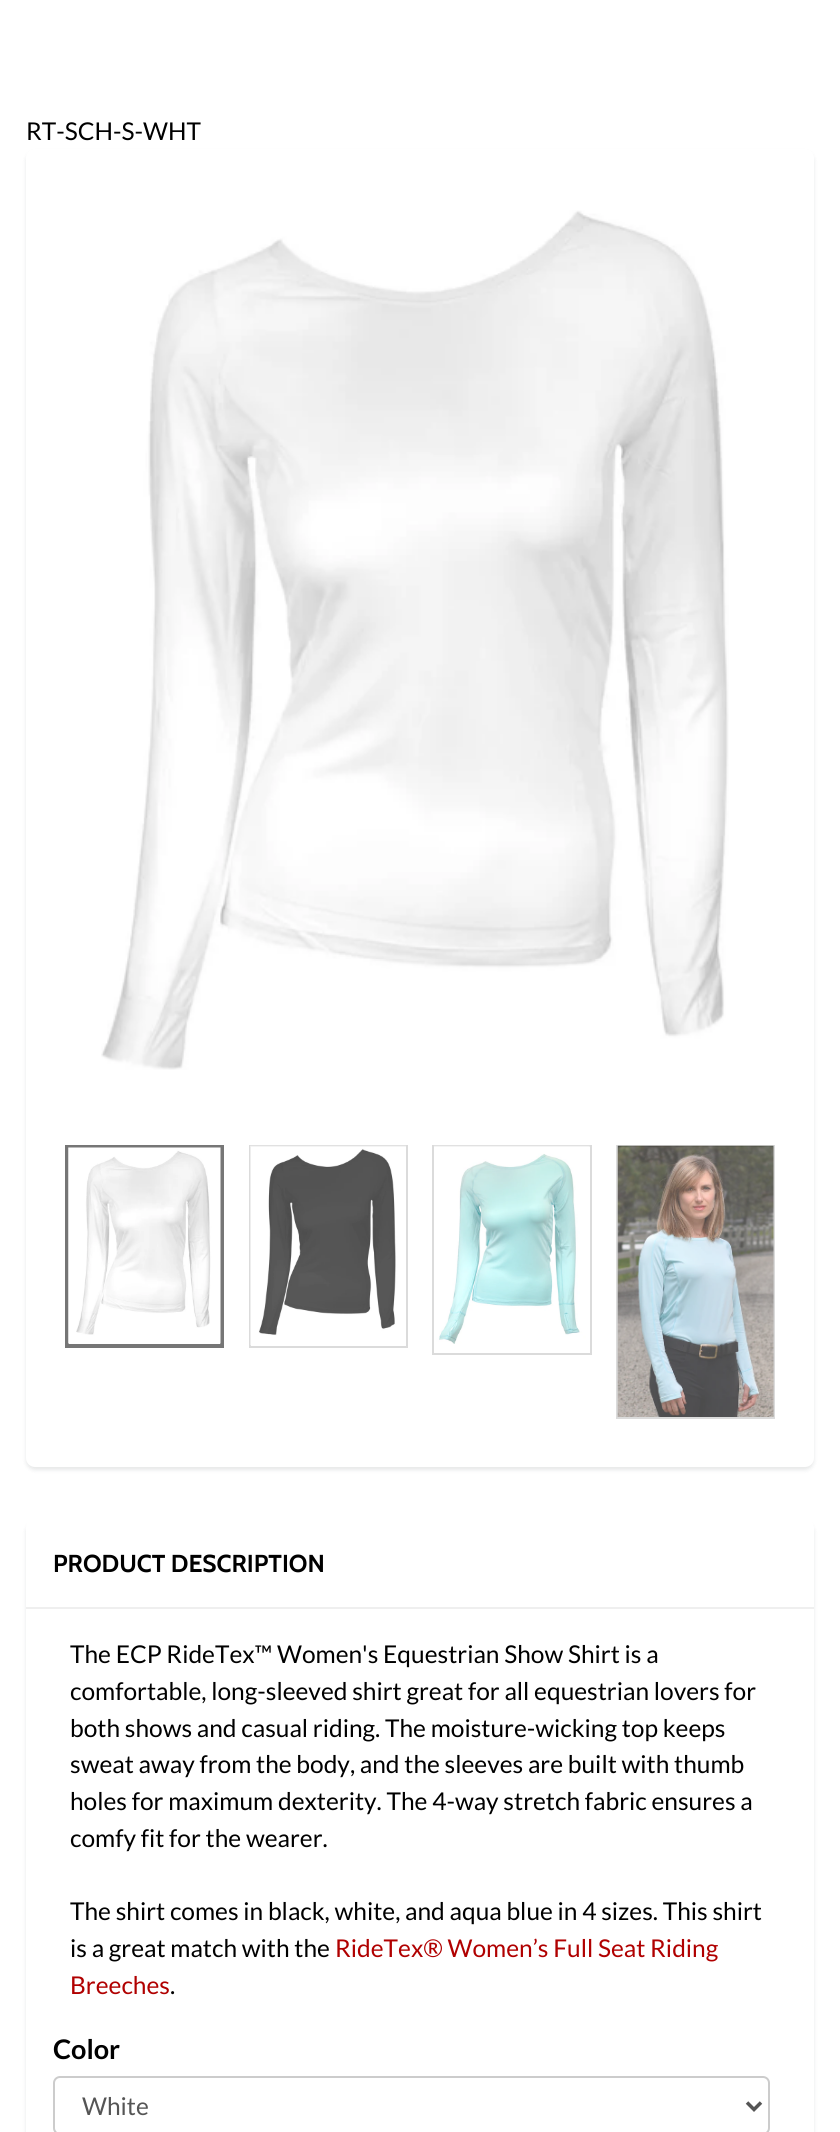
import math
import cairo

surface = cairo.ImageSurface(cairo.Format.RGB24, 840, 2132)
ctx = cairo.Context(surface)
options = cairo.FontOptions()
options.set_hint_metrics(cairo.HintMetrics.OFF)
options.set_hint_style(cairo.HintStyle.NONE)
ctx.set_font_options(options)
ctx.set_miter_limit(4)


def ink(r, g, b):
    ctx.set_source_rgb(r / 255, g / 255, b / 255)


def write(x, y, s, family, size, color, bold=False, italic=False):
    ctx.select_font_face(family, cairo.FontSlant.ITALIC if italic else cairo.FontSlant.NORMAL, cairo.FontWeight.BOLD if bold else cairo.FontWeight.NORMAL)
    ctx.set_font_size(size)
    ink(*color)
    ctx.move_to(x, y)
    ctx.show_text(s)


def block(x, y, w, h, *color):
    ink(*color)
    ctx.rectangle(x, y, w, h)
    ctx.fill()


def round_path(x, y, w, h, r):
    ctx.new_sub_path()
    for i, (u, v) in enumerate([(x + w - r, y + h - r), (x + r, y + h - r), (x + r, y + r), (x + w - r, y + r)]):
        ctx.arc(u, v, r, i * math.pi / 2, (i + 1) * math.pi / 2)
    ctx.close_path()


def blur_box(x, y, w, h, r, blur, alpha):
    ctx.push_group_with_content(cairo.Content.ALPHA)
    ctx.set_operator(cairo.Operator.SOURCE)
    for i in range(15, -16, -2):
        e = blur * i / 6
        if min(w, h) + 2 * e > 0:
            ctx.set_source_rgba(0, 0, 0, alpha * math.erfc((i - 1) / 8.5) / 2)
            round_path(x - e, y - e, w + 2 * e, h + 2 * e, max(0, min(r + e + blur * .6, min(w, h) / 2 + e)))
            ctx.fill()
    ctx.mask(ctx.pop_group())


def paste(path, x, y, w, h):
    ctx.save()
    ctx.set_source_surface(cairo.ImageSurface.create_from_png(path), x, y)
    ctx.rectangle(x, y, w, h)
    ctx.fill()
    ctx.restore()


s1 = dict(family="Lato", size=24.5, color=(0, 0, 0))
s2 = dict(family="Cabin", size=24.5, color=(0, 0, 0), bold=True)
s3 = dict(family="Lato", size=24.5, color=(176, 0, 0))
s4 = dict(family="Lato", size=27, color=(0, 0, 0), bold=True)
s5 = dict(family="Lato", size=24.5, color=(85, 85, 85))

ink(255, 255, 255)
ctx.paint()
write(26, 140, "RT-SCH-S-WHT", **s1)
ink(11, 25, 28)
blur_box(26, 152, 788, 1318, 9, 2, 0.1)
ink(255, 255, 255)
round_path(26, 149, 788, 1318, 9)
ctx.fill()
paste("pic1.png", 101, 210, 628, 860)
ctx.rectangle(67, 1147, 155, 199)
ink(118, 118, 118)
ctx.set_line_width(4)
ctx.stroke()
paste("pic2.png", 68, 1147, 153, 197)
ctx.rectangle(250, 1146, 157, 201)
ink(219, 219, 219)
ctx.set_line_width(2)
ctx.stroke()
paste("pic3.png", 250, 1145, 156, 201)
ctx.rectangle(433, 1146, 158, 208)
ctx.stroke()
paste("pic4.png", 434, 1145, 156, 199)
ctx.rectangle(617, 1146, 157, 272)
ctx.stroke()
paste("pic5.png", 617, 1145, 157, 272)
ink(11, 25, 28)
blur_box(26, 1523, 788, 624, 9, 2, 0.1)
ink(255, 255, 255)
round_path(26, 1519, 788, 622, 9)
ctx.fill()
block(26, 1607, 788, 2, 239, 239, 239)
write(53, 1572, "PRODUCT DESCRIPTION", **s2)
write(70, 1663, "The ECP RideTex™ Women's Equestrian Show Shirt is a", **s1)
write(70, 1700, "comfortable, long-sleeved shirt great for all equestrian lovers for", **s1)
write(70, 1737, "both shows and casual riding. The moisture-wicking top keeps", **s1)
write(70, 1773, "sweat away from the body, and the sleeves are built with thumb", **s1)
write(70, 1810, "holes for maximum dexterity. The 4-way stretch fabric ensures a", **s1)
write(70, 1847, "comfy fit for the wearer.", **s1)
write(70, 1920, "The shirt comes in black, white, and aqua blue in 4 sizes. This shirt", **s1)
write(70, 1957, "is a great match with the", **s1)
write(335, 1957, "RideTex® Women’s Full Seat Riding", **s3)
write(70, 1994, "Breeches", **s3)
write(170, 1994, ".", **s1)
write(53, 2059, "Color", **s4)
round_path(54, 2077, 715, 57, 6)
ink(204, 204, 204)
ctx.stroke()
ctx.new_path()
ctx.move_to(747, 2102.5)
ctx.line_to(754, 2109.5)
ctx.line_to(761, 2102.5)
ink(85, 85, 85)
ctx.set_line_width(3.5)
ctx.stroke()
write(82, 2115, "White", **s5)
surface.write_to_png("screenshot.png")
